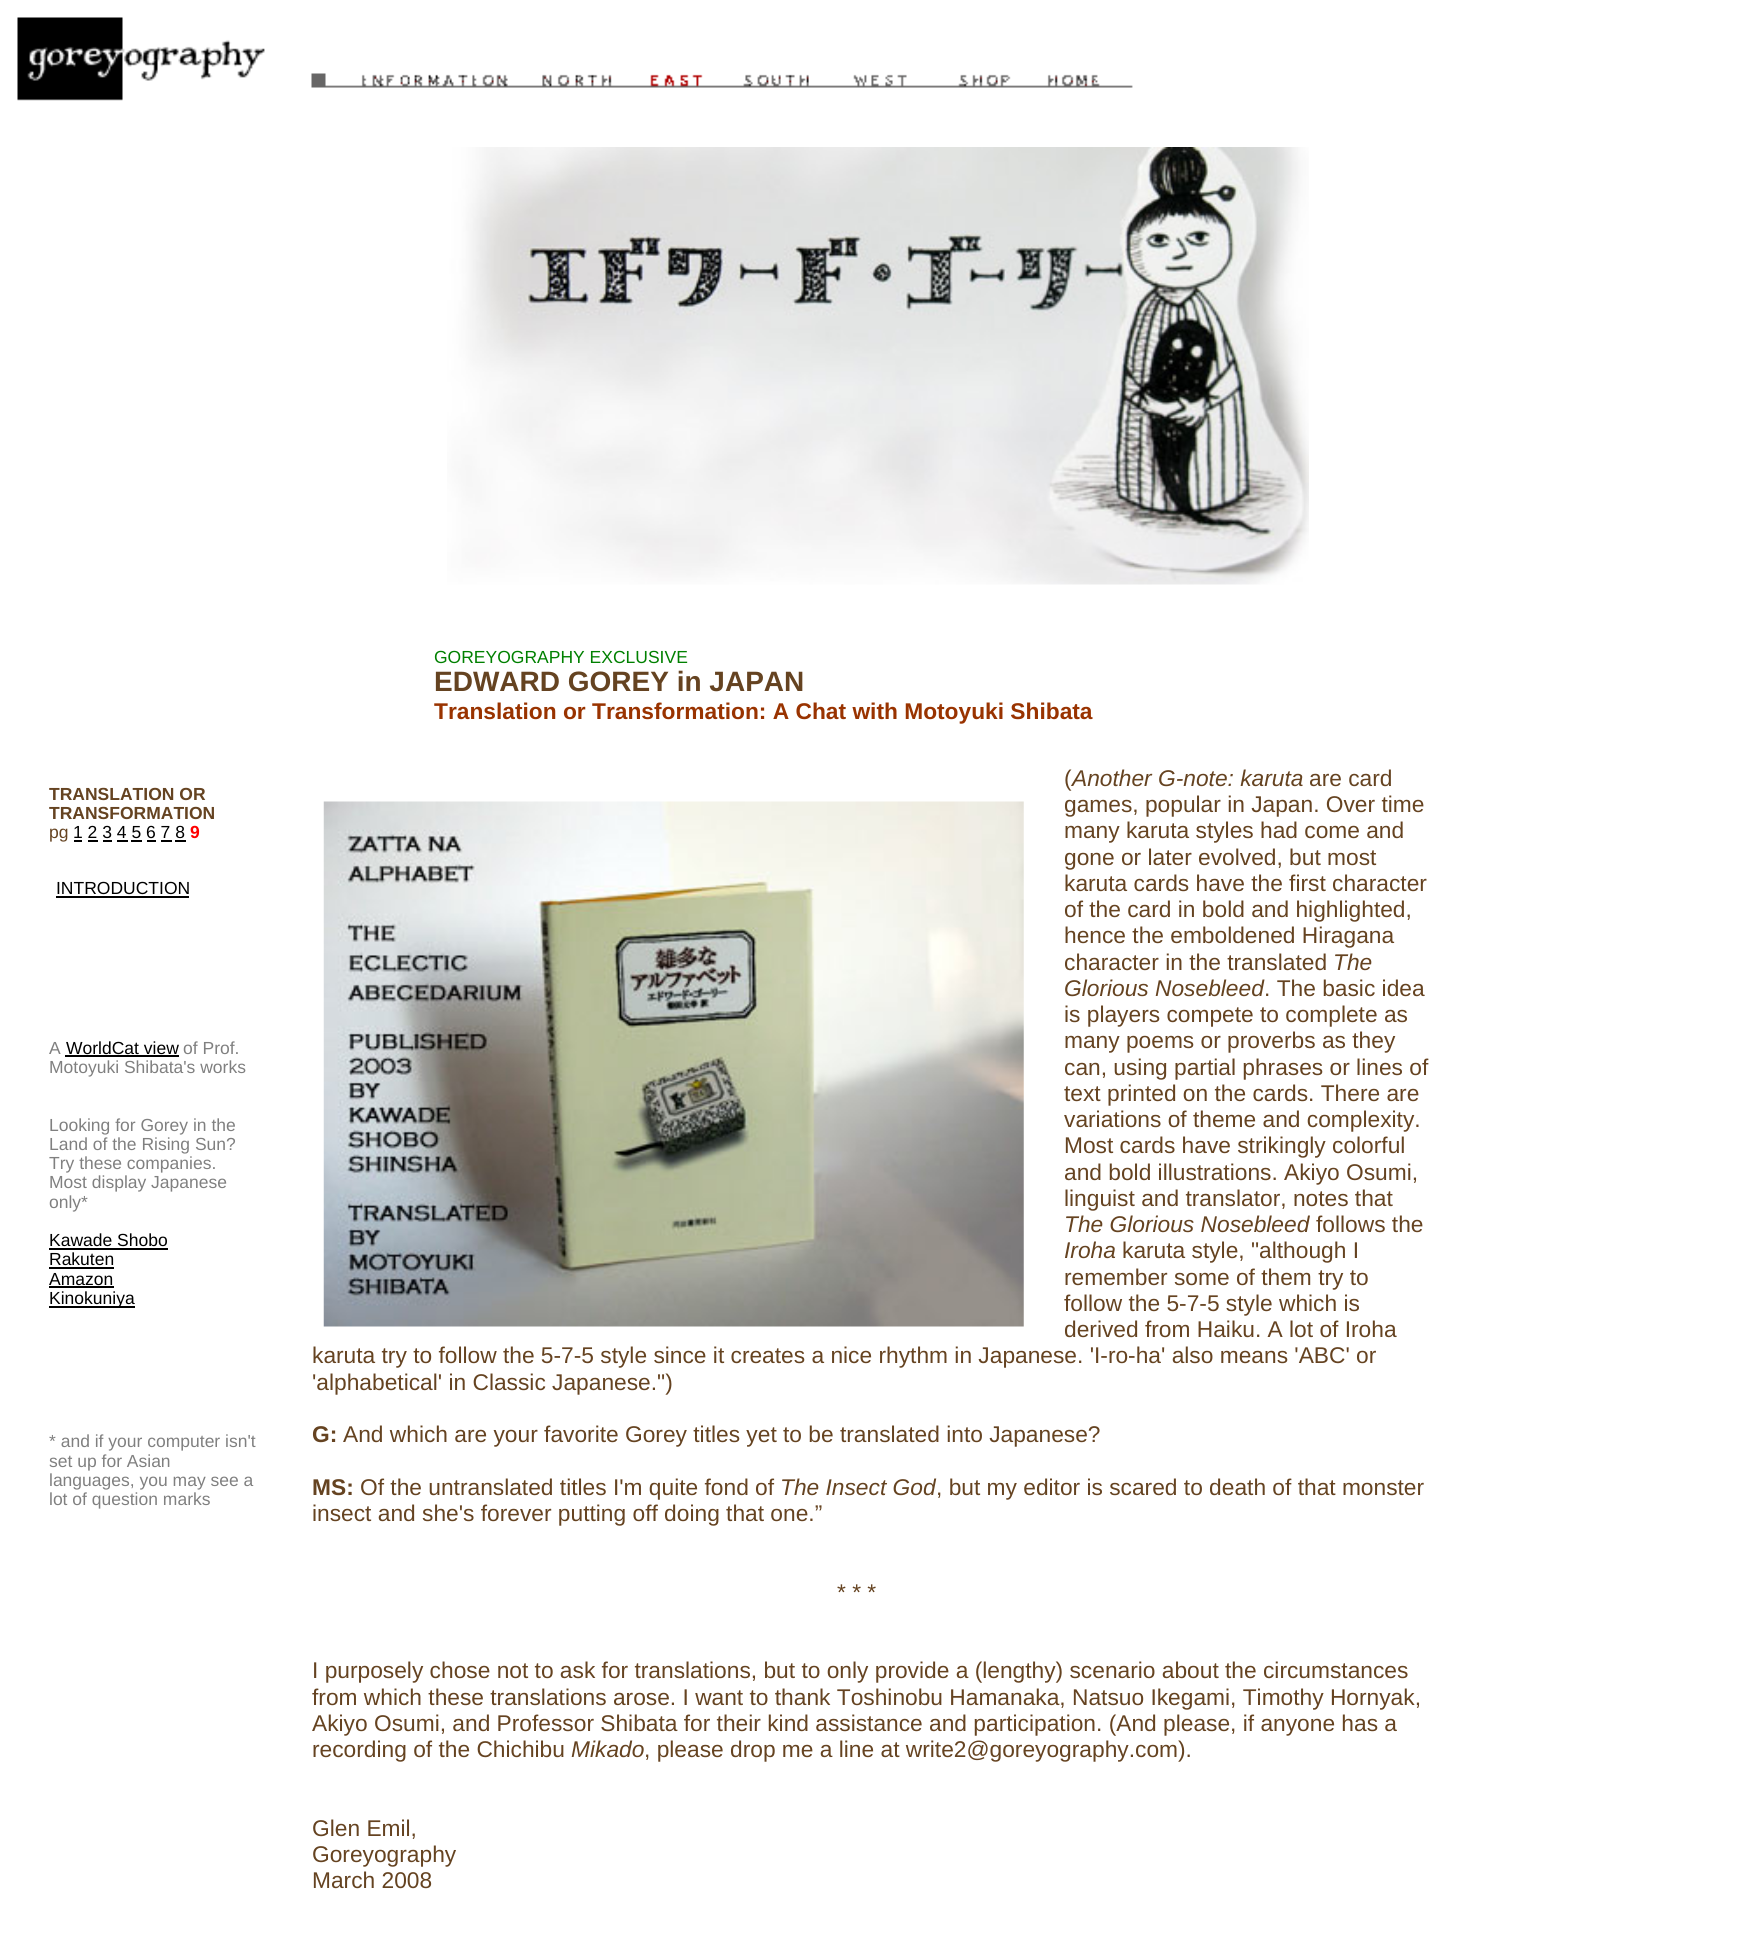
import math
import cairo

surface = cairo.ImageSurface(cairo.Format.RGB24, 1742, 1943)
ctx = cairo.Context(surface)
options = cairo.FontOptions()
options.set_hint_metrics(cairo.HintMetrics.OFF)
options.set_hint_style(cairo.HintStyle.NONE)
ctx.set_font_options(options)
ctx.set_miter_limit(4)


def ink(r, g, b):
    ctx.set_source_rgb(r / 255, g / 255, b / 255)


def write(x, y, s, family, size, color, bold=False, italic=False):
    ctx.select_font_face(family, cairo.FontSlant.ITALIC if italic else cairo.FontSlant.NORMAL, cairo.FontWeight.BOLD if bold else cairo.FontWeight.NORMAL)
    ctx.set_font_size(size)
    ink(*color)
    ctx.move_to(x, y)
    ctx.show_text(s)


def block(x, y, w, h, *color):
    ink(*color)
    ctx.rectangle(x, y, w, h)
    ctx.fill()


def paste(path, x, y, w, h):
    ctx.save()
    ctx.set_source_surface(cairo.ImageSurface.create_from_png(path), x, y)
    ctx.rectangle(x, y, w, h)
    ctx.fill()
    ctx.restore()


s1 = dict(family="Liberation Sans", size=17.5, color=(0, 128, 0))
s2 = dict(family="Liberation Sans", size=28, color=(101, 67, 33), bold=True)
s3 = dict(family="Liberation Sans", size=22.75, color=(153, 51, 0), bold=True)
s4 = dict(family="Liberation Sans", size=17.5, color=(101, 67, 33), bold=True)
s5 = dict(family="Liberation Sans", size=17.5, color=(101, 67, 33))
s6 = dict(family="Liberation Sans", size=17.5, color=(0, 0, 0))
s7 = dict(family="Liberation Sans", size=17.5, color=(255, 0, 0), bold=True)
s8 = dict(family="Liberation Sans", size=17.5, color=(128, 128, 128))
s9 = dict(family="Liberation Sans", size=22.75, color=(101, 67, 33))
s10 = dict(family="Liberation Sans", size=22.75, color=(101, 67, 33), italic=True)
s11 = dict(family="Liberation Sans", size=22.75, color=(101, 67, 33), bold=True)

ink(255, 255, 255)
ctx.paint()
paste("pic1.png", 17, 17, 248, 84)
paste("pic2.png", 311, 73, 822, 15)
paste("pic3.png", 447, 147, 862, 438)
write(434, 663, "GOREYOGRAPHY EXCLUSIVE", **s1)
write(434, 691, "EDWARD GOREY in JAPAN", **s2)
write(434, 719, "Translation or Transformation: A Chat with Motoyuki Shibata", **s3)
write(49, 800, "TRANSLATION OR", **s4)
write(49, 819, "TRANSFORMATION", **s4)
write(49, 838, "pg", **s5)
write(73, 838, "1 2 3 4 5 6 7 8", **s6)
block(74, 840, 8, 2, 0, 0, 0)
write(190, 838, "9", **s7)
block(88, 840, 10, 2, 0, 0, 0)
block(103, 840, 9, 2, 0, 0, 0)
block(117, 840, 11, 2, 0, 0, 0)
block(131, 840, 11, 2, 0, 0, 0)
block(147, 840, 9, 2, 0, 0, 0)
block(161, 840, 11, 2, 0, 0, 0)
block(175, 840, 11, 2, 0, 0, 0)
write(56, 894, "INTRODUCTION", **s6)
block(56, 896, 133, 2, 0, 0, 0)
write(49, 1054, "A", **s8)
write(66, 1054, "WorldCat view", **s6)
block(65, 1055, 114, 2, 0, 0, 0)
write(183, 1054, "of Prof.", **s8)
write(49, 1073, "Motoyuki Shibata's works", **s8)
write(49, 1131, "Looking for Gorey in the", **s8)
write(49, 1150, "Land of the Rising Sun?", **s8)
write(49, 1169, "Try these companies.", **s8)
write(49, 1188, "Most display Japanese", **s8)
write(49, 1208, "only*", **s8)
write(49, 1246, "Kawade Shobo", **s6)
block(49, 1248, 119, 2, 0, 0, 0)
write(49, 1265, "Rakuten", **s6)
block(49, 1267, 65, 2, 0, 0, 0)
write(49, 1285, "Amazon", **s6)
block(49, 1286, 65, 2, 0, 0, 0)
block(49, 1306, 86, 2, 0, 0, 0)
write(49, 1304, "Kinokuniya", **s6)
write(49, 1447, "* and if your computer isn't", **s8)
write(49, 1467, "set up for Asian", **s8)
write(49, 1486, "languages, you may see a", **s8)
write(49, 1505, "lot of question marks", **s8)
write(1064, 786, "(", **s9)
write(1072, 786, "Another G-note: karuta", **s10)
write(1309, 786, "are card", **s9)
write(1064, 812, "games, popular in Japan. Over time", **s9)
write(1064, 838, "many karuta styles had come and", **s9)
write(1064, 865, "gone or later evolved, but most", **s9)
write(1064, 891, "karuta cards have the first character", **s9)
write(1064, 917, "of the card in bold and highlighted,", **s9)
write(1064, 943, "hence the emboldened Hiragana", **s9)
write(1064, 970, "character in the translated", **s9)
write(1333, 970, "The", **s10)
write(1064, 996, "Glorious Nosebleed", **s10)
write(1264, 996, ". The basic idea", **s9)
write(1064, 1022, "is players compete to complete as", **s9)
write(1064, 1048, "many poems or proverbs as they", **s9)
write(1064, 1075, "can, using partial phrases or lines of", **s9)
write(1064, 1101, "text printed on the cards. There are", **s9)
write(1064, 1127, "variations of theme and complexity.", **s9)
write(1064, 1153, "Most cards have strikingly colorful", **s9)
write(1064, 1180, "and bold illustrations. Akiyo Osumi,", **s9)
write(1064, 1206, "linguist and translator, notes that", **s9)
write(1064, 1232, "The Glorious Nosebleed", **s10)
write(1316, 1232, "follows the", **s9)
write(1064, 1258, "Iroha", **s10)
write(1122, 1258, "karuta style, \"although I", **s9)
write(1064, 1285, "remember some of them try to", **s9)
write(1064, 1311, "follow the 5-7-5 style which is", **s9)
write(1064, 1337, "derived from Haiku. A lot of Iroha", **s9)
write(312, 1363, "karuta try to follow the 5-7-5 style since it creates a nice rhythm in Japanese. 'I-ro-ha' also means 'ABC' or", **s9)
write(312, 1390, "'alphabetical' in Classic Japanese.\")", **s9)
write(312, 1442, "G:", **s11)
write(343, 1442, "And which are your favorite Gorey titles yet to be translated into Japanese?", **s9)
write(312, 1495, "MS:", **s11)
write(360, 1495, "Of the untranslated titles I'm quite fond of", **s9)
write(780, 1495, "The Insect God", **s10)
write(936, 1495, ", but my editor is scared to death of that monster", **s9)
write(312, 1521, "insect and she's forever putting off doing that one.”", **s9)
write(837, 1600, "* * *", **s9)
write(312, 1678, "I purposely chose not to ask for translations, but to only provide a (lengthy) scenario about the circumstances", **s9)
write(312, 1705, "from which these translations arose. I want to thank Toshinobu Hamanaka, Natsuo Ikegami, Timothy Hornyak,", **s9)
write(312, 1731, "Akiyo Osumi, and Professor Shibata for their kind assistance and participation. (And please, if anyone has a", **s9)
write(312, 1757, "recording of the Chichibu", **s9)
write(571, 1757, "Mikado", **s10)
write(644, 1757, ", please drop me a line at write2@goreyography.com).", **s9)
write(312, 1836, "Glen Emil,", **s9)
write(312, 1862, "Goreyography", **s9)
write(312, 1888, "March 2008", **s9)
paste("pic4.png", 323, 801, 701, 526)
surface.write_to_png("screenshot.png")
